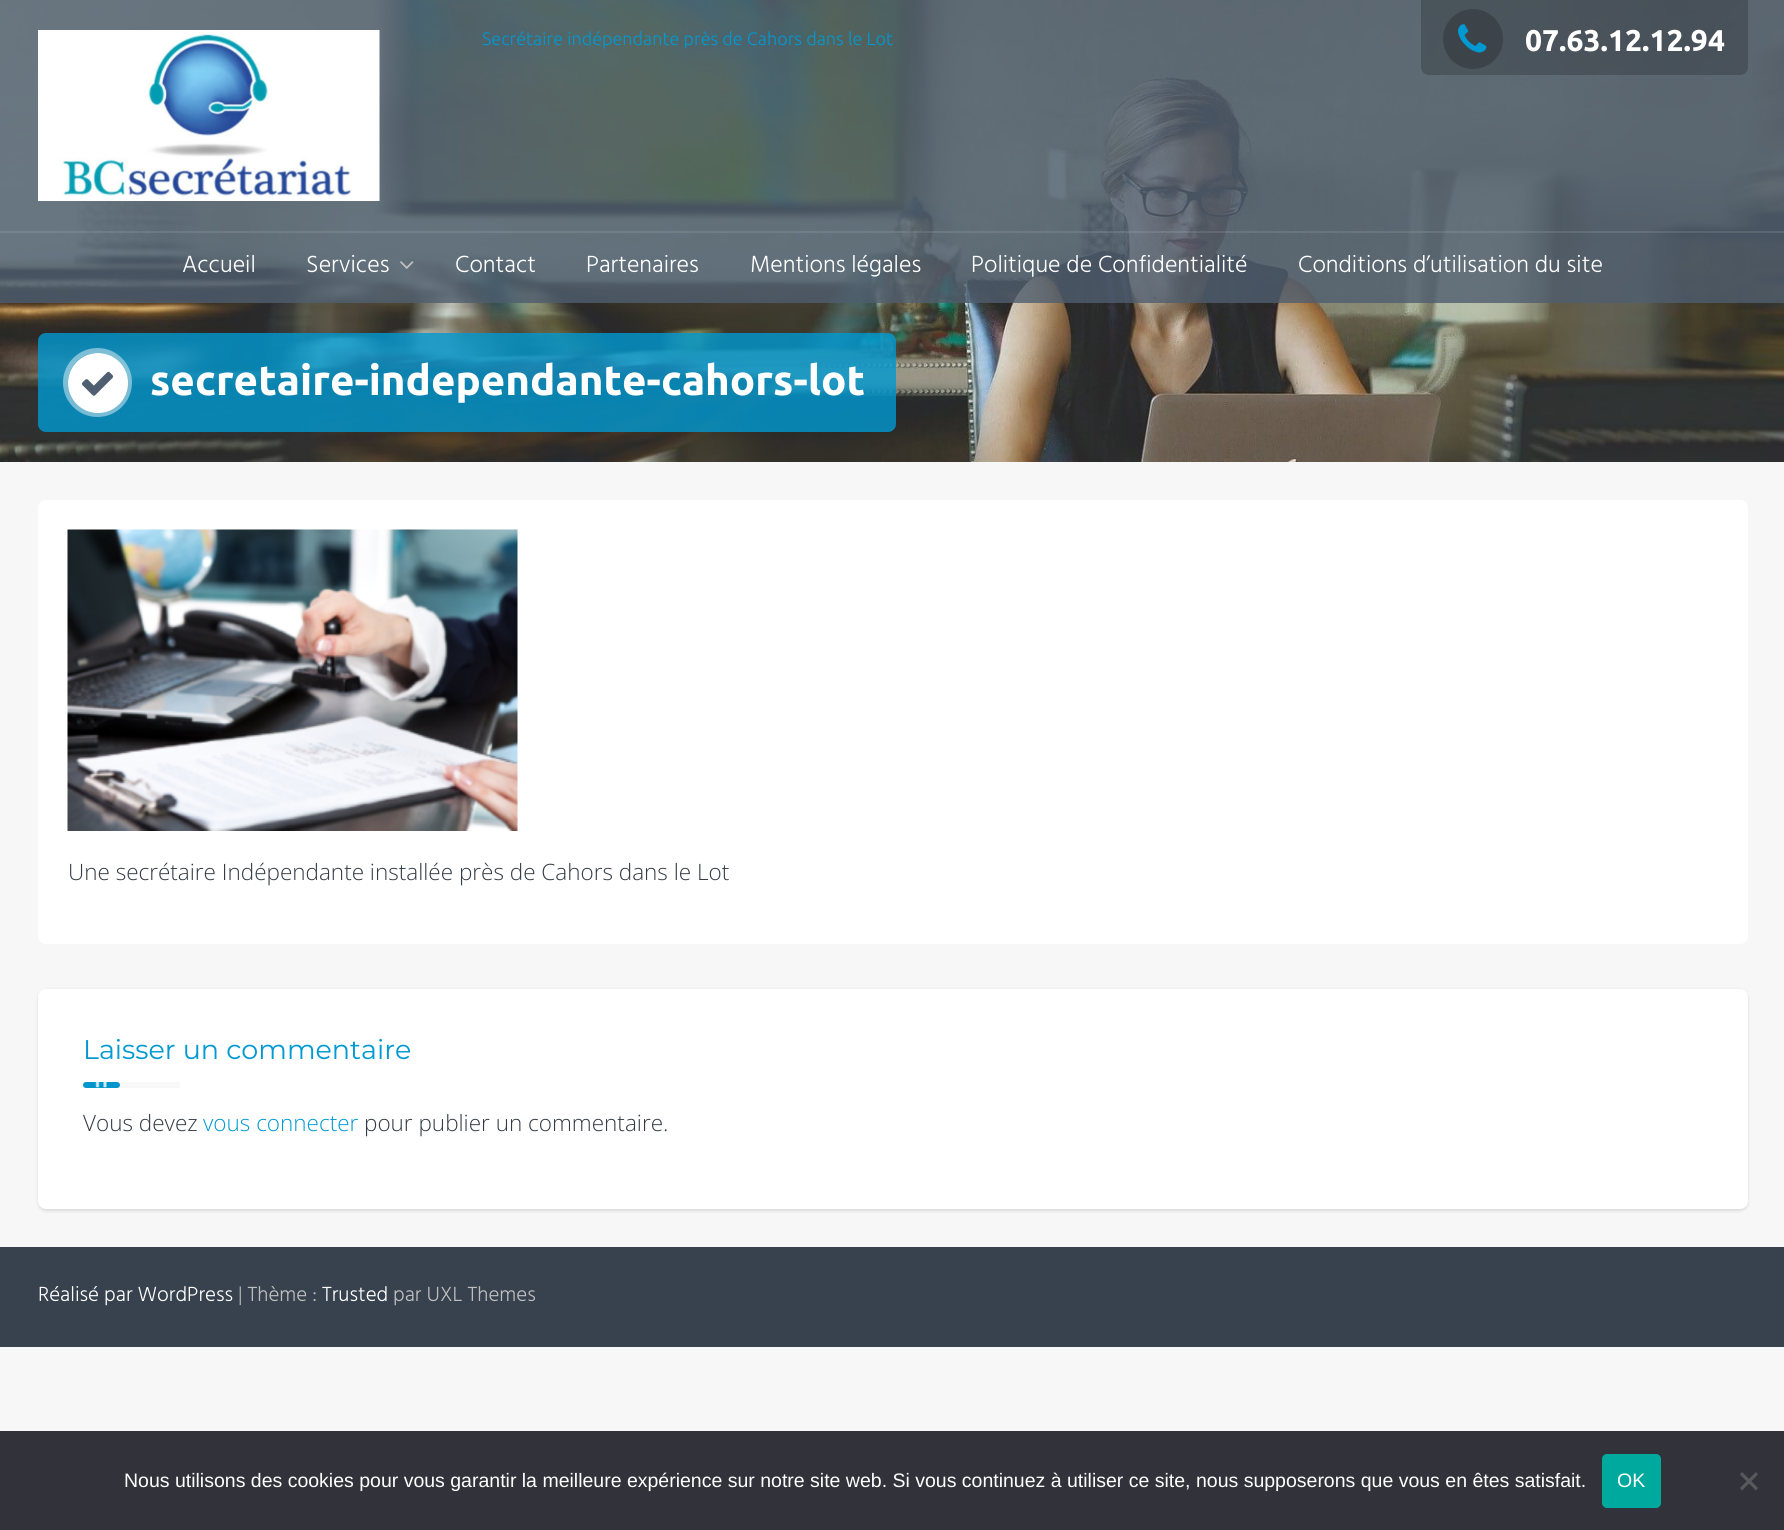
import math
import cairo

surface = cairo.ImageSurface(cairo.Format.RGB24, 1784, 1530)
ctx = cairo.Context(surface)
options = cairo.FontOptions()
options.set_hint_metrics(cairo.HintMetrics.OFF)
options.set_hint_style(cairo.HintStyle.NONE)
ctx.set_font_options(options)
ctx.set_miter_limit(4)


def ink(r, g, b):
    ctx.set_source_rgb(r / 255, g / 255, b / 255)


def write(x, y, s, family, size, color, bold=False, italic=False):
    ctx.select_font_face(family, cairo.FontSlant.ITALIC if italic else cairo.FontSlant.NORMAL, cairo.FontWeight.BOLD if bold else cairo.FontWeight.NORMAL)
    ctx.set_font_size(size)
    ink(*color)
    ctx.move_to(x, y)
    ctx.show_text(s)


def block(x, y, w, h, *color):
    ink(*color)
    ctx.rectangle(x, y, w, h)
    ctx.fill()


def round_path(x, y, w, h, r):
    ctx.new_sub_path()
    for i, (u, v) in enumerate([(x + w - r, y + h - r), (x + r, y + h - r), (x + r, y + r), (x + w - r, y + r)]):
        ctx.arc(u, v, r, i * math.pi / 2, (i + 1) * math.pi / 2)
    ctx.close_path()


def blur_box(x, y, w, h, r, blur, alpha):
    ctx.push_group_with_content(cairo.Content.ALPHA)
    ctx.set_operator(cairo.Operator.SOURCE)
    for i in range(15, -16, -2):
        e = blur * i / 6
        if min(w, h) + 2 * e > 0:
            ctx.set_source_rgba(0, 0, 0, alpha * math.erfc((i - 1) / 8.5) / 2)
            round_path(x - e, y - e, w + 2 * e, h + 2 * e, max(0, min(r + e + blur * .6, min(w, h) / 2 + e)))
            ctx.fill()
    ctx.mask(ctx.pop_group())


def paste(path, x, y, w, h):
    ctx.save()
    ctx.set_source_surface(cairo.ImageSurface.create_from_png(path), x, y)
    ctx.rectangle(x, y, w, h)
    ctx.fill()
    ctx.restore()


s1 = dict(family="Ubuntu Light", size=18, color=(0, 153, 209))
s2 = dict(family="Ubuntu", size=30, color=(255, 255, 255), bold=True)
s3 = dict(family="Hind Light", size=24, color=(255, 255, 255))
s4 = dict(family="Ubuntu", size=42, color=(255, 255, 255), bold=True)
s5 = dict(family="Open Sans Light", size=22.5, color=(50, 59, 68))
s6 = dict(family="Montserrat", size=27, color=(0, 153, 209))
s7 = dict(family="Open Sans Light", size=22.5, color=(0, 153, 209))
s8 = dict(family="Hind Light", size=21, color=(255, 255, 255))
s9 = dict(family="Hind Light", size=21, color=(190, 190, 190))
s10 = dict(family="Liberation Sans", size=19.5, color=(255, 255, 255))

ink(247, 247, 247)
ctx.paint()
paste("pic4.png", 0, 0, 1784, 462)
ctx.set_source_rgba(0.31, 0.369, 0.439, 0.8)
ctx.rectangle(0, 0, 1784, 303)
ctx.fill()
paste("pic1.png", 38, 30, 342, 171)
write(482, 45, "Secrétaire indépendante près de Cahors dans le Lot", **s1)
ctx.set_source_rgba(0, 0, 0, 0.2)
ctx.new_path()
ctx.move_to(1421, 0)
ctx.line_to(1748, 0)
ctx.line_to(1748, 67)
ctx.curve_to(1748, 71.5, 1744.5, 75, 1740, 75)
ctx.line_to(1429, 75)
ctx.curve_to(1424.5, 75, 1421, 71.5, 1421, 67)
ctx.close_path()
ctx.fill()
ink(60, 68, 74)
ctx.arc(1473, 39, 30, 0, 2 * math.pi)
ctx.fill()
paste("pic2.png", 1458, 24, 29, 29)
write(1525, 51, "07.63.12.12.94", **s2)
ctx.set_source_rgba(1, 1, 1, 0.1)
ctx.rectangle(0, 231, 1784, 2)
ctx.fill()
write(182, 272, "Accueil", **s3)
write(306, 272, "Services", **s3)
paste("pic3.png", 400, 261, 14, 8)
write(455, 272, "Contact", **s3)
write(586, 272, "Partenaires", **s3)
write(750, 272, "Mentions légales", **s3)
write(971, 272, "Politique de Confidentialité", **s3)
write(1298, 272, "Conditions d’utilisation du site", **s3)
ctx.set_source_rgba(0, 0.6, 0.82, 0.8)
round_path(38, 333, 858, 99, 8)
ctx.fill()
ctx.arc(97.5, 382.5, 32, 0, 2 * math.pi)
ctx.set_source_rgba(1, 1, 1, 0.45)
ctx.set_line_width(5)
ctx.stroke()
ink(255, 255, 255)
ctx.arc(98, 383, 30, 0, 2 * math.pi)
ctx.fill()
paste("pic5.png", 81, 371, 33, 25)
write(150, 395, "secretaire-independante-cahors-lot", **s4)
round_path(38, 500, 1710, 444, 8)
ctx.fill()
paste("pic6.png", 67, 529, 451, 302)
write(68, 880, "Une secrétaire Indépendante installée près de Cahors dans le Lot", **s5)
ink(0, 0, 0)
blur_box(38, 990, 1710, 221, 8, 1.5, 0.12)
ink(255, 255, 255)
round_path(38, 989, 1710, 220, 8)
ctx.fill()
write(83, 1059, "Laisser un commentaire", **s6)
round_path(83, 1082, 37, 6, 3)
ctx.fill()
paste("pic7.png", 95, 1082, 12, 6)
ctx.set_source_rgba(0, 0, 0, 0.03)
ctx.rectangle(83, 1082, 97, 6)
ctx.fill()
write(83, 1131, "Vous devez", **s5)
write(203, 1131, "vous connecter", **s7)
write(364, 1131, "pour publier un commentaire.", **s5)
block(0, 1247, 1784, 100, 55, 66, 78)
write(38, 1301, "Réalisé par WordPress", **s8)
write(238, 1301, "| Thème :", **s9)
write(322, 1301, "Trusted", **s8)
write(393, 1301, "par UXL Themes", **s9)
block(0, 1431, 1784, 99, 50, 50, 58)
write(124, 1487, "Nous utilisons des cookies pour vous garantir la meilleure expérience sur notre site web. Si vous continuez à utiliser ce site, nous supposerons que vous en êtes satisfait.", **s10)
ink(0, 169, 157)
round_path(1602, 1454, 59, 54, 5)
ctx.fill()
write(1617, 1487, "OK", **s10)
ink(89, 89, 93)
ctx.new_path()
ctx.move_to(1756, 1472)
ctx.line_to(1758, 1474.5)
ctx.line_to(1742, 1490.5)
ctx.line_to(1740, 1488)
ctx.close_path()
ctx.fill()
ctx.new_path()
ctx.move_to(1740, 1474.5)
ctx.line_to(1742, 1472)
ctx.line_to(1758, 1488)
ctx.line_to(1756, 1490.5)
ctx.close_path()
ctx.fill()
surface.write_to_png("screenshot.png")
